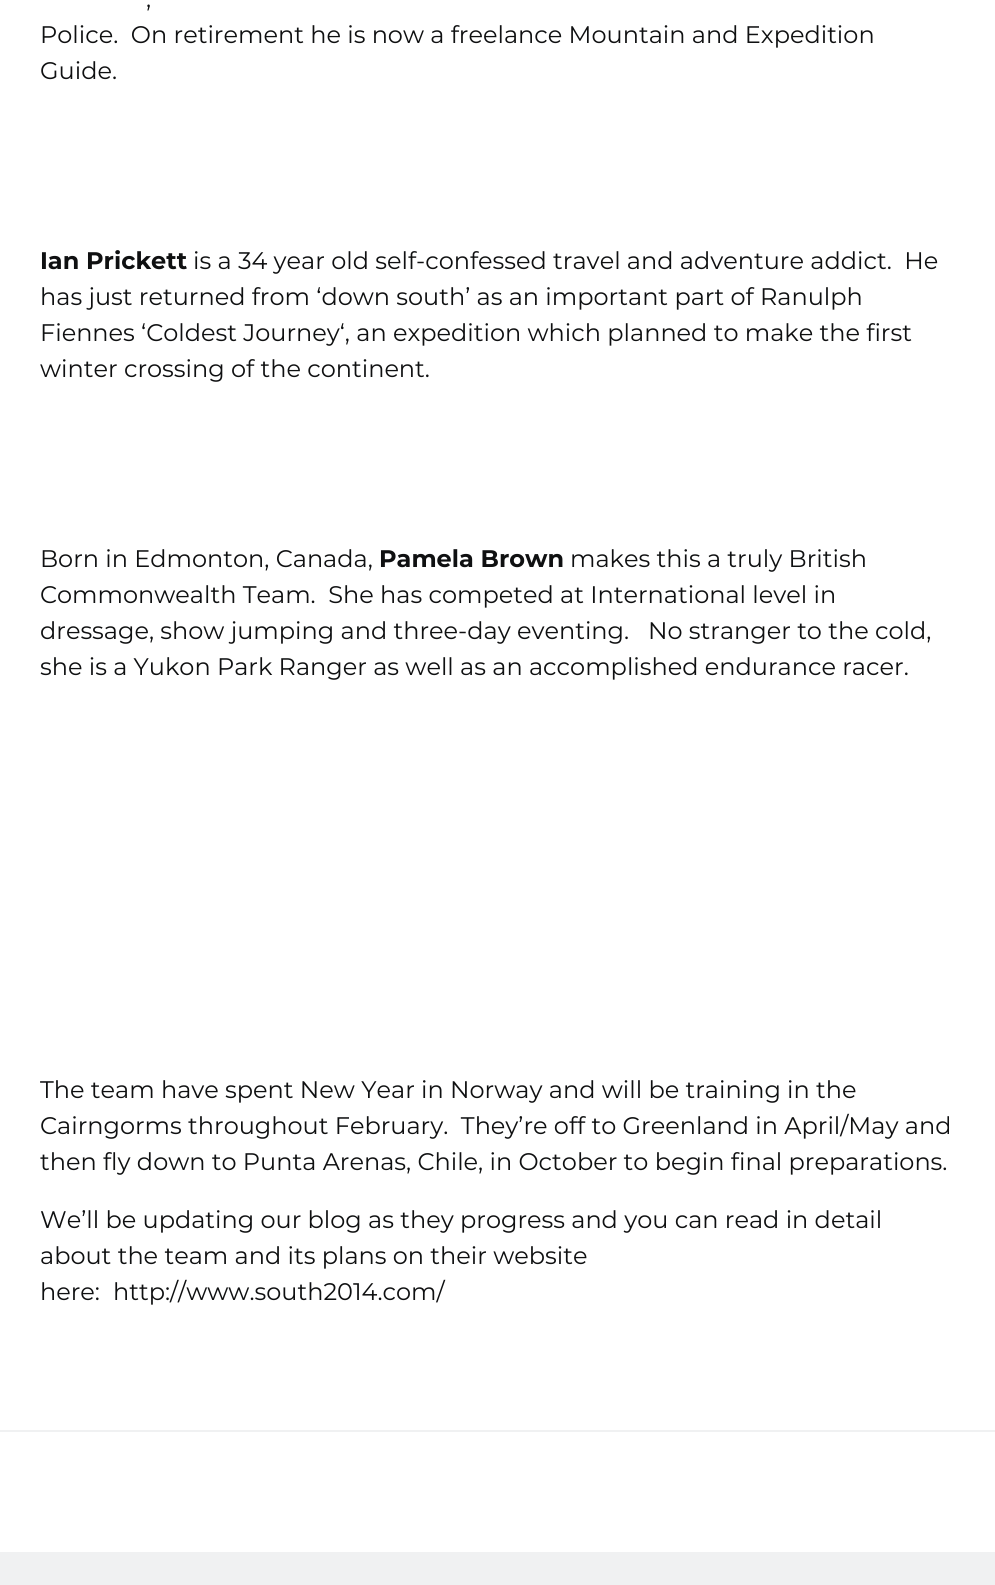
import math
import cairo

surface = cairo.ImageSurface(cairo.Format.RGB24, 995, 1585)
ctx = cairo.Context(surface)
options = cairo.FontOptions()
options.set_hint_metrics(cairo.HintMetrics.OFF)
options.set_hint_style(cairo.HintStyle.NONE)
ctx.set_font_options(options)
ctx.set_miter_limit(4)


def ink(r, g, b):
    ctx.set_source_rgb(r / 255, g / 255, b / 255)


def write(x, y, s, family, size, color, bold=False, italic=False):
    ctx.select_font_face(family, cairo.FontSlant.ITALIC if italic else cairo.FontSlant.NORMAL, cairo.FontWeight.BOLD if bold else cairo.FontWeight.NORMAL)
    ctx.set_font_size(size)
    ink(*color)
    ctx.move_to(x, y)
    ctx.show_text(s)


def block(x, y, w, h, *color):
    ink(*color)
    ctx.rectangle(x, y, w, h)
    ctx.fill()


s1 = dict(family="Montserrat", size=24, color=(15, 16, 17))
s2 = dict(family="Montserrat", size=24, color=(15, 16, 17), bold=True)

ink(255, 255, 255)
ctx.paint()
write(146, 7, ",", **s1)
write(40, 43, "Police.  On retirement he is now a freelance Mountain and Expedition", **s1)
write(40, 79, "Guide.", **s1)
write(40, 269, "Ian Prickett", **s2)
write(193, 269, "is a 34 year old self-confessed travel and adventure addict.  He", **s1)
write(40, 305, "has just returned from ‘down south’ as an important part of Ranulph", **s1)
write(40, 341, "Fiennes ‘Coldest Journey‘, an expedition which planned to make the first", **s1)
write(40, 377, "winter crossing of the continent.", **s1)
write(40, 567, "Born in Edmonton, Canada,", **s1)
write(379, 567, "Pamela Brown", **s2)
write(570, 567, "makes this a truly British", **s1)
write(40, 603, "Commonwealth Team.  She has competed at International level in", **s1)
write(40, 639, "dressage, show jumping and three-day eventing.   No stranger to the cold,", **s1)
write(40, 675, "she is a Yukon Park Ranger as well as an accomplished endurance racer.", **s1)
write(40, 1098, "The team have spent New Year in Norway and will be training in the", **s1)
write(40, 1134, "Cairngorms throughout February.  They’re off to Greenland in April/May and", **s1)
write(40, 1170, "then fly down to Punta Arenas, Chile, in October to begin final preparations.", **s1)
write(40, 1228, "We’ll be updating our blog as they progress and you can read in detail", **s1)
write(40, 1264, "about the team and its plans on their website", **s1)
write(40, 1300, "here:", **s1)
write(113, 1300, "http://www.south2014.com/", **s1)
block(0, 1430, 995, 2, 240, 241, 242)
block(0, 1552, 995, 33, 240, 241, 242)
surface.write_to_png("screenshot.png")
